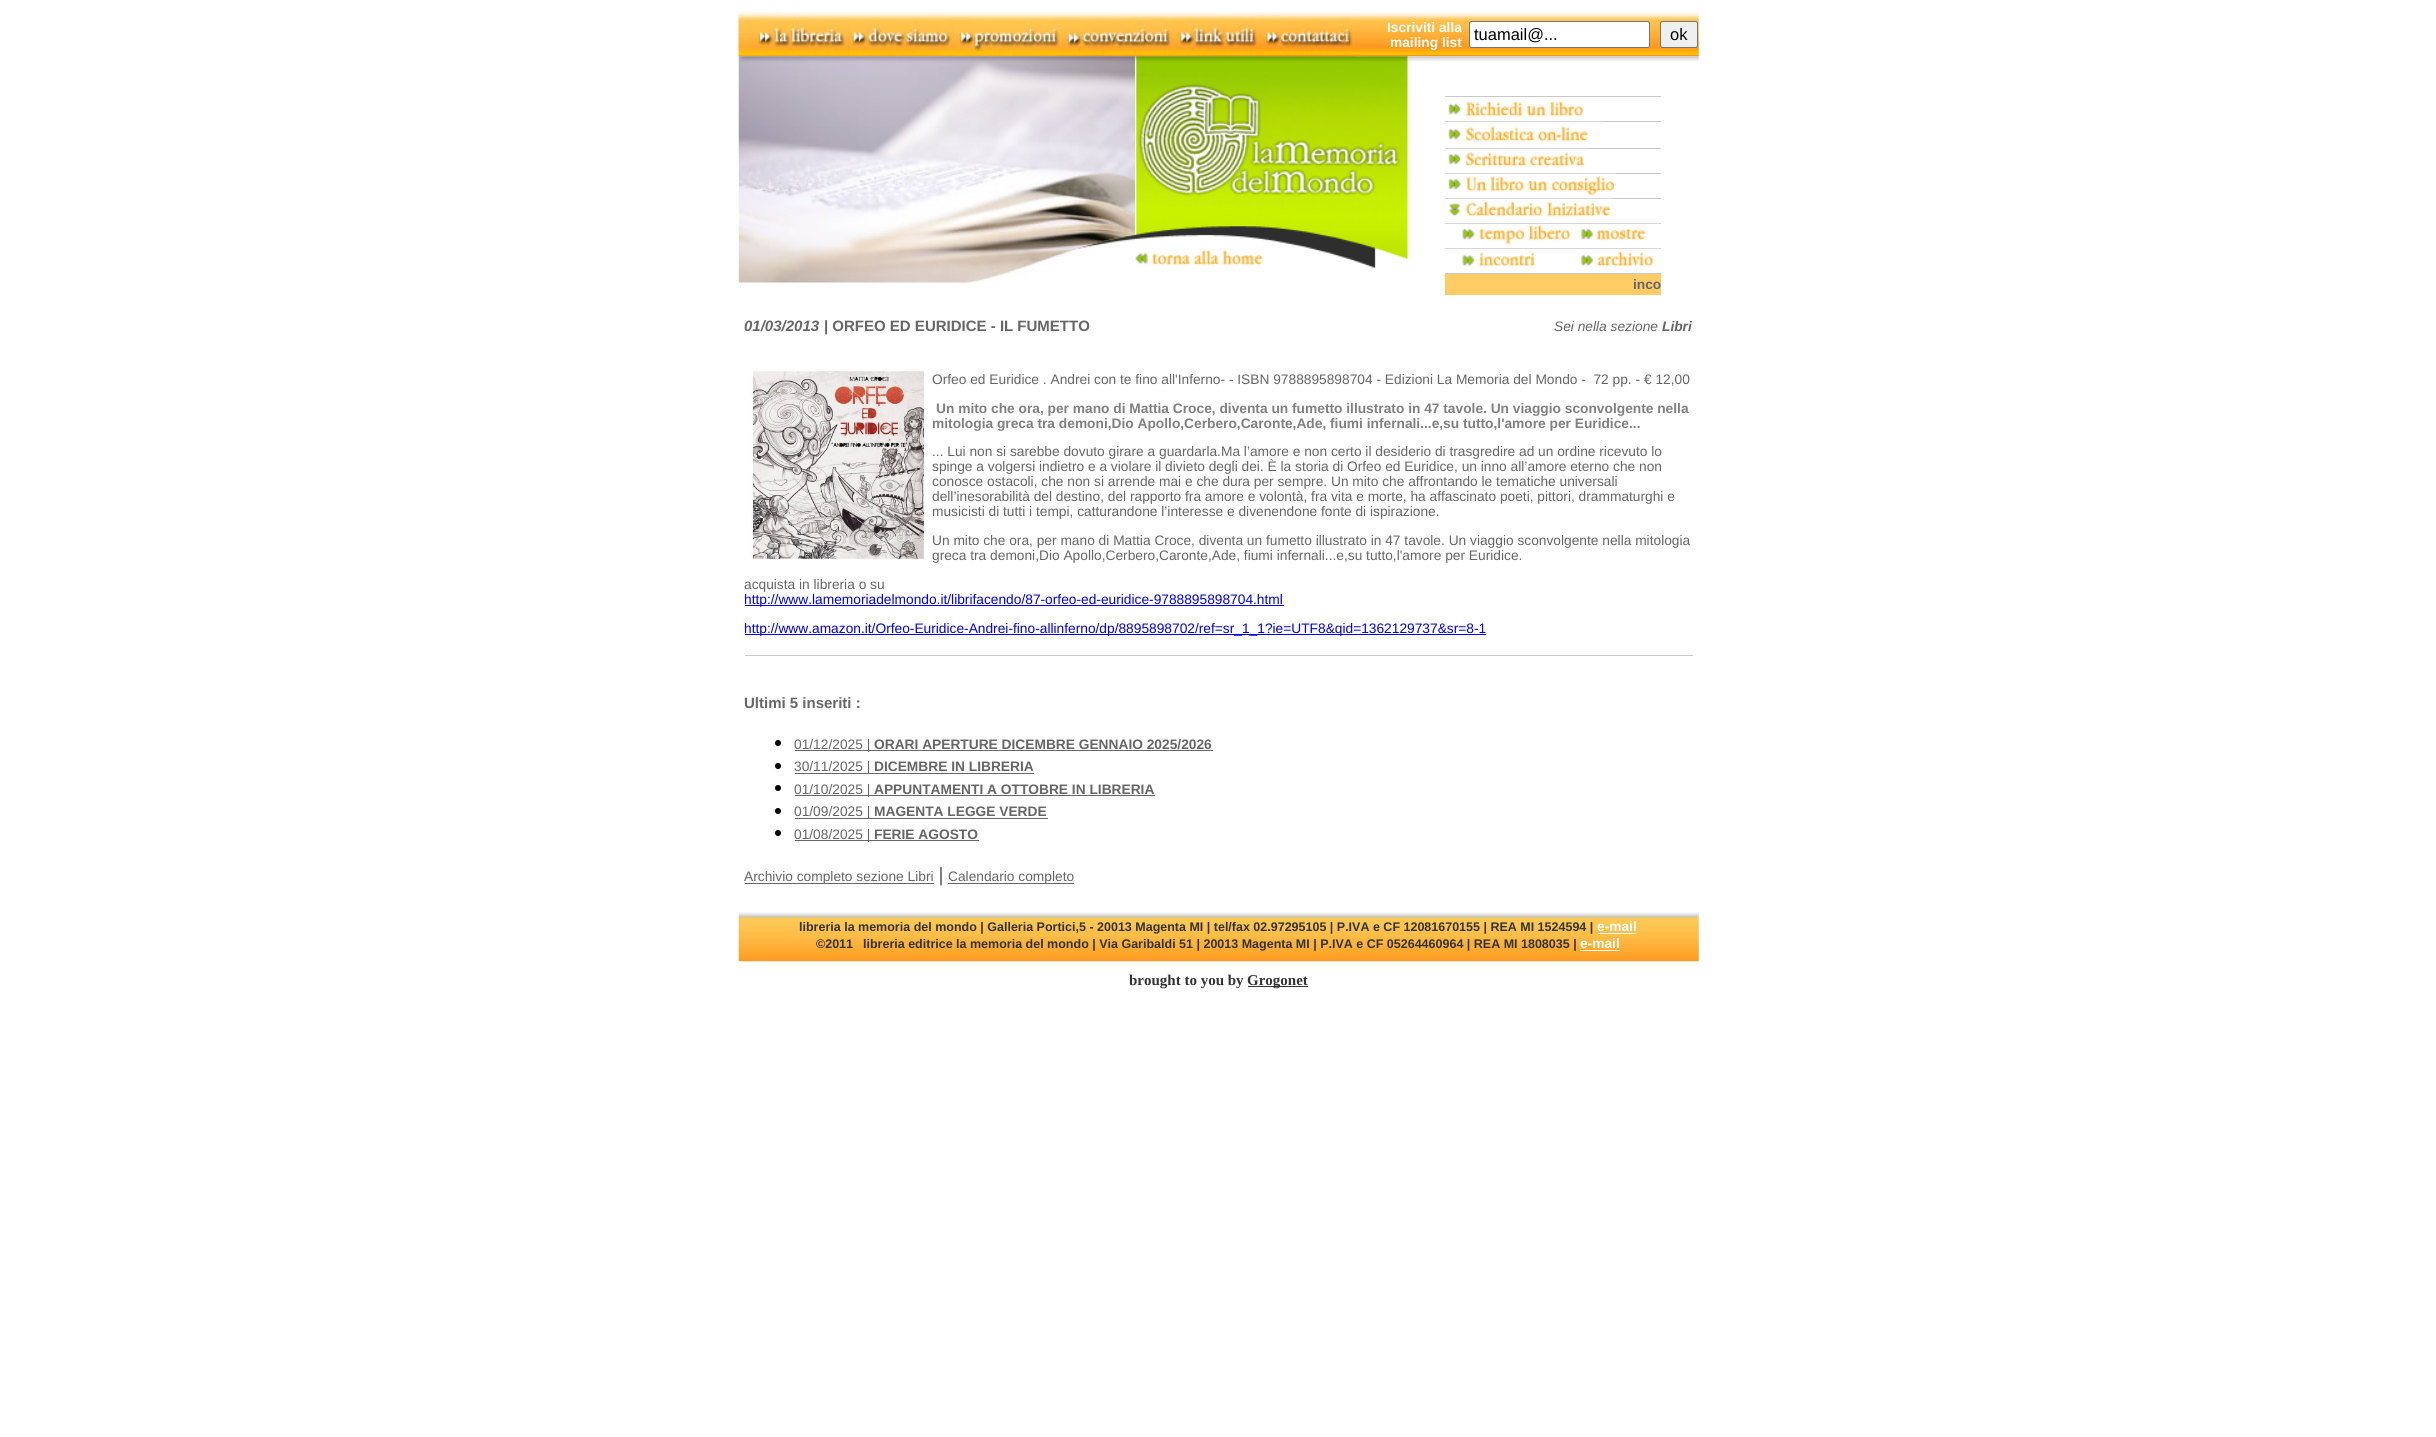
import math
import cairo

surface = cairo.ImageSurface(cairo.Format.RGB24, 2436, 1437)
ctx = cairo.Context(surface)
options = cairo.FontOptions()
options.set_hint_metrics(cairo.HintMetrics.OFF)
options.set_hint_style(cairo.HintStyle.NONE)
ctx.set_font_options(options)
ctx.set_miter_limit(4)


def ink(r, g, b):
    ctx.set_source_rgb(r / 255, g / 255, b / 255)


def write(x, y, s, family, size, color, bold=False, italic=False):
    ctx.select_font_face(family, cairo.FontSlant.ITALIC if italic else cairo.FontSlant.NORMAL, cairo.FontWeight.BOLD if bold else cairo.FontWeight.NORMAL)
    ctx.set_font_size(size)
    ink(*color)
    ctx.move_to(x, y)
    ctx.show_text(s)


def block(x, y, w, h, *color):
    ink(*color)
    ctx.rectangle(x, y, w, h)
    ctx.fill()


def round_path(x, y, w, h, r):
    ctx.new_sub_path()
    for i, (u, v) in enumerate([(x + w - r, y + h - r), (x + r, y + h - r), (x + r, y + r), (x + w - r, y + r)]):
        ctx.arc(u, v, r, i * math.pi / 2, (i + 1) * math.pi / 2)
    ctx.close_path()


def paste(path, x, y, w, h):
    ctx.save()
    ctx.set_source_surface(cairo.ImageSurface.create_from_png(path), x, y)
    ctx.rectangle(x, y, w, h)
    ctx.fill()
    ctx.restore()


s1 = dict(family="Liberation Sans", size=13.75, color=(255, 255, 255), bold=True)
s2 = dict(family="Liberation Sans", size=16.5, color=(0, 0, 0))
s3 = dict(family="Liberation Sans", size=13.75, color=(102, 102, 102), bold=True)
s4 = dict(family="Liberation Sans", size=15, color=(102, 102, 102), bold=True, italic=True)
s5 = dict(family="Liberation Sans", size=15, color=(102, 102, 102), bold=True)
s6 = dict(family="Liberation Sans", size=13.75, color=(102, 102, 102), italic=True)
s7 = dict(family="Liberation Sans", size=13.75, color=(102, 102, 102), bold=True, italic=True)
s8 = dict(family="Liberation Sans", size=13.75, color=(102, 102, 102))
s9 = dict(family="Liberation Sans", size=13.75, color=(128, 128, 128), bold=True)
s10 = dict(family="Liberation Sans", size=13.75, color=(0, 0, 238))
s11 = dict(family="Liberation Serif", size=20, color=(0, 0, 0))
s12 = dict(family="Liberation Sans", size=12.5, color=(51, 51, 51), bold=True)
s13 = dict(family="Liberation Serif", size=15, color=(51, 51, 51), bold=True)

ink(255, 255, 255)
ctx.paint()
paste("pic1.png", 738, 12, 961, 45)
paste("pic2.png", 738, 12, 111, 45)
paste("pic3.png", 848, 12, 106, 45)
paste("pic4.png", 953, 12, 110, 45)
paste("pic5.png", 1062, 12, 115, 45)
paste("pic6.png", 1176, 12, 84, 45)
paste("pic7.png", 1260, 12, 95, 45)
write(1387, 32, "Iscriviti alla", **s1)
write(1390, 47, "mailing list", **s1)
round_path(1469.5, 21.5, 180, 26, 2)
ctx.fill_preserve()
ink(118, 118, 118)
ctx.set_line_width(1)
ctx.stroke()
write(1474, 40, "tuamail@...", **s2)
ink(239, 239, 239)
round_path(1660.5, 21.5, 37, 26, 2)
ctx.fill_preserve()
ink(118, 118, 118)
ctx.stroke()
write(1670, 40, "ok", **s2)
paste("pic8.png", 738, 56, 397, 227)
paste("pic10.png", 1407, 56, 292, 5)
paste("pic9.png", 1135, 56, 273, 213)
block(1445, 96, 216, 1, 201, 201, 201)
block(1445, 121, 216, 1, 201, 201, 201)
paste("pic11.png", 1445, 101, 158, 21)
paste("pic12.png", 1448, 126, 140, 16)
block(1445, 148, 216, 1, 201, 201, 201)
paste("pic13.png", 1445, 148, 141, 19)
block(1445, 173, 216, 1, 201, 201, 201)
paste("pic14.png", 1445, 173, 171, 23)
block(1445, 198, 216, 1, 201, 201, 201)
paste("pic15.png", 1445, 198, 168, 19)
block(1445, 223, 216, 1, 201, 201, 201)
paste("pic16.png", 1445, 223, 129, 21)
paste("pic17.png", 1574, 223, 86, 18)
block(1445, 248, 216, 1, 201, 201, 201)
paste("pic18.png", 1445, 248, 129, 19)
paste("pic19.png", 1574, 248, 86, 19)
block(1445, 274, 216, 21, 255, 204, 102)
block(1445, 273, 216, 1, 201, 201, 201)
write(1633, 289, "inco", **s3)
write(744, 331, "01/03/2013", **s4)
write(824, 331, "| ORFEO ED EURIDICE - IL FUMETTO", **s5)
write(1554, 331, "Sei nella sezione", **s6)
write(1662, 331, "Libri", **s7)
paste("pic20.png", 750, 371, 175, 188)
write(932, 384, "Orfeo ed Euridice . Andrei con te fino all'Inferno- - ISBN 9788895898704 - Edizioni La Memoria del Mondo -  72 pp. - € 12,00", **s8)
write(936, 413, "Un mito che ora, per mano di Mattia Croce, diventa un fumetto illustrato in 47 tavole. Un viaggio sconvolgente nella", **s9)
write(932, 428, "mitologia greca tra demoni,Dio Apollo,Cerbero,Caronte,Ade, fiumi infernali...e,su tutto,l'amore per Euridice...", **s9)
write(932, 456, "... Lui non si sarebbe dovuto girare a guardarla.Ma l’amore e non certo il desiderio di trasgredire ad un ordine ricevuto lo", **s8)
write(932, 471, "spinge a volgersi indietro e a violare il divieto degli dei. È la storia di Orfeo ed Euridice, un inno all’amore eterno che non", **s8)
write(932, 486, "conosce ostacoli, che non si arrende mai e che dura per sempre. Un mito che affrontando le tematiche universali", **s8)
write(932, 501, "dell’inesorabilità del destino, del rapporto fra amore e volontà, fra vita e morte, ha affascinato poeti, pittori, drammaturghi e", **s8)
write(932, 516, "musicisti di tutti i tempi, catturandone l’interesse e divenendone fonte di ispirazione.", **s8)
write(932, 545, "Un mito che ora, per mano di Mattia Croce, diventa un fumetto illustrato in 47 tavole. Un viaggio sconvolgente nella mitologia", **s8)
write(932, 560, "greca tra demoni,Dio Apollo,Cerbero,Caronte,Ade, fiumi infernali...e,su tutto,l'amore per Euridice.", **s8)
write(744, 589, "acquista in libreria o su", **s8)
block(745, 605, 539, 1, 0, 0, 238)
write(744, 604, "http://www.lamemoriadelmondo.it/librifacendo/87-orfeo-ed-euridice-9788895898704.html", **s10)
block(745, 634, 741, 1, 0, 0, 238)
write(744, 633, "http://www.amazon.it/Orfeo-Euridice-Andrei-fino-allinferno/dp/8895898702/ref=sr_1_1?ie=UTF8&qid=1362129737&sr=8-1", **s10)
block(745, 655, 948, 1, 201, 201, 201)
write(744, 708, "Ultimi 5 inseriti :", **s5)
ink(0, 0, 0)
ctx.new_path()
ctx.arc(778, 743, 3, 0, 2 * math.pi)
ctx.fill()
block(795, 750, 418, 1, 102, 102, 102)
write(794, 749, "01/12/2025 |", **s8)
write(874, 749, "ORARI APERTURE DICEMBRE GENNAIO 2025/2026", **s3)
ink(0, 0, 0)
ctx.new_path()
ctx.arc(778, 766, 3, 0, 2 * math.pi)
ctx.fill()
block(795, 773, 239, 1, 102, 102, 102)
write(794, 771, "30/11/2025 |", **s8)
write(874, 771, "DICEMBRE IN LIBRERIA", **s3)
ink(0, 0, 0)
ctx.new_path()
ctx.arc(778, 788, 3, 0, 2 * math.pi)
ctx.fill()
block(795, 795, 360, 1, 102, 102, 102)
write(794, 794, "01/10/2025 |", **s8)
write(874, 794, "APPUNTAMENTI A OTTOBRE IN LIBRERIA", **s3)
ink(0, 0, 0)
ctx.new_path()
ctx.arc(778, 811, 3, 0, 2 * math.pi)
ctx.fill()
block(795, 818, 253, 1, 102, 102, 102)
write(794, 816, "01/09/2025 |", **s8)
write(874, 816, "MAGENTA LEGGE VERDE", **s3)
ink(0, 0, 0)
ctx.new_path()
ctx.arc(778, 833, 3, 0, 2 * math.pi)
ctx.fill()
block(795, 840, 184, 1, 102, 102, 102)
write(794, 839, "01/08/2025 |", **s8)
write(874, 839, "FERIE AGOSTO", **s3)
block(745, 883, 189, 1, 102, 102, 102)
write(744, 881, "Archivio completo sezione Libri", **s8)
write(939, 881, "|", **s11)
block(948, 883, 126, 1, 102, 102, 102)
write(948, 881, "Calendario completo", **s8)
paste("pic21.png", 738, 912, 961, 50)
write(799, 931, "libreria la memoria del mondo | Galleria Portici,5 - 20013 Magenta MI | tel/fax 02.97295105 | P.IVA e CF 12081670155 | REA MI 1524594 |", **s12)
write(1597, 931, "e-mail", **s1)
block(1598, 933, 38, 1, 255, 255, 255)
write(816, 948, "©2011", **s12)
write(863, 948, "libreria editrice la memoria del mondo | Via Garibaldi 51 | 20013 Magenta MI | P.IVA e CF 05264460964 | REA MI 1808035 |", **s12)
write(1580, 948, "e-mail", **s1)
block(1580, 950, 40, 1, 255, 255, 255)
write(1129, 985, "brought to you by", **s13)
block(1248, 986, 60, 1, 51, 51, 51)
write(1247, 985, "Grogonet", **s13)
surface.write_to_png("screenshot.png")
